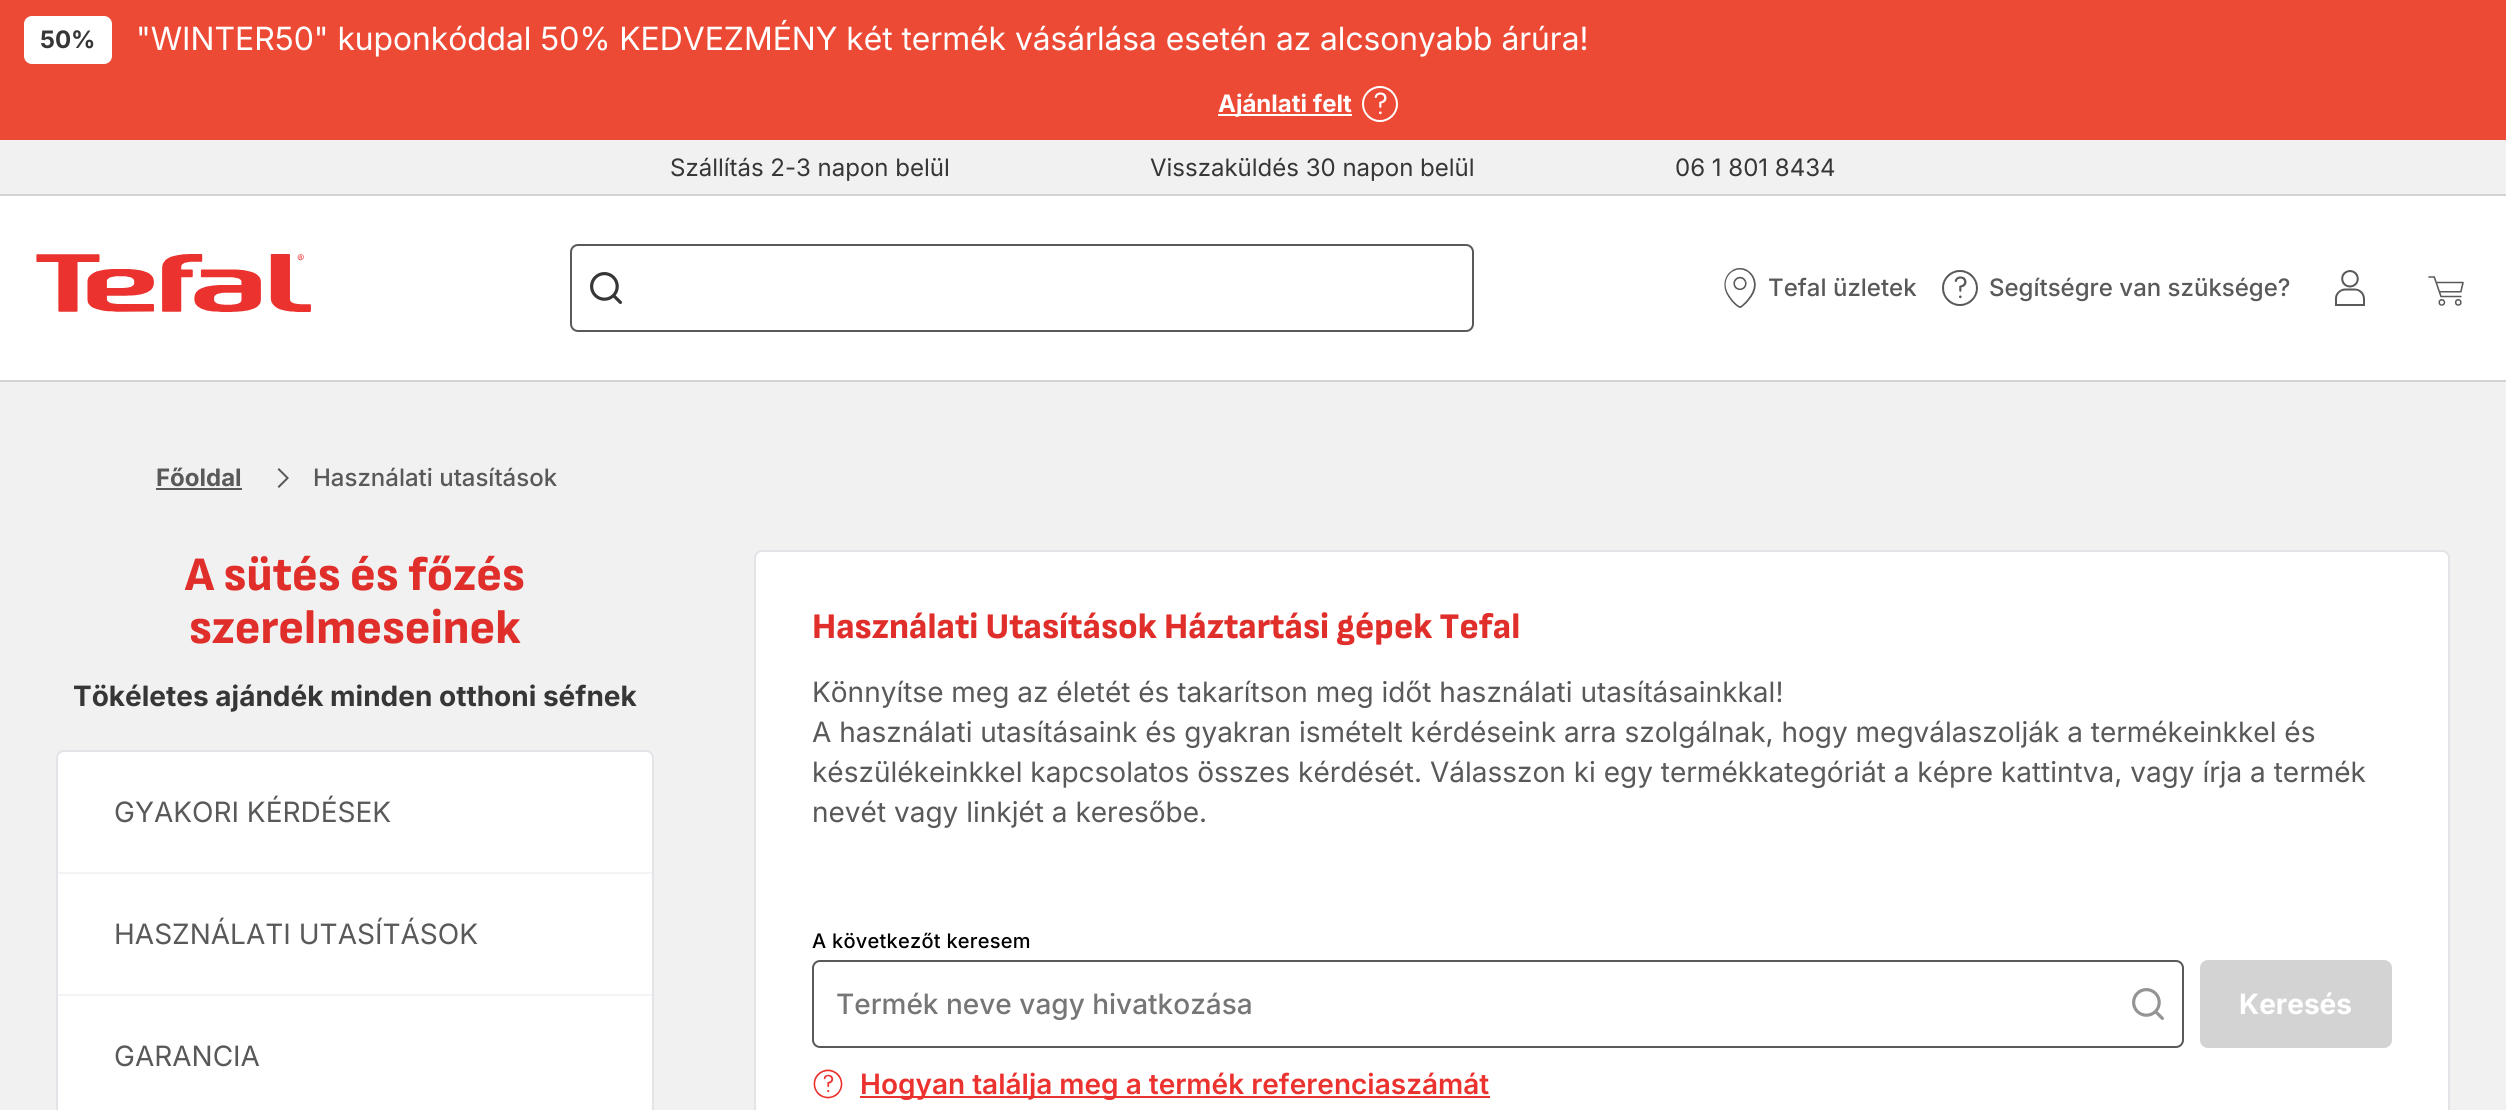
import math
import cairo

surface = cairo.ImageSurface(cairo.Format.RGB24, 2506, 1110)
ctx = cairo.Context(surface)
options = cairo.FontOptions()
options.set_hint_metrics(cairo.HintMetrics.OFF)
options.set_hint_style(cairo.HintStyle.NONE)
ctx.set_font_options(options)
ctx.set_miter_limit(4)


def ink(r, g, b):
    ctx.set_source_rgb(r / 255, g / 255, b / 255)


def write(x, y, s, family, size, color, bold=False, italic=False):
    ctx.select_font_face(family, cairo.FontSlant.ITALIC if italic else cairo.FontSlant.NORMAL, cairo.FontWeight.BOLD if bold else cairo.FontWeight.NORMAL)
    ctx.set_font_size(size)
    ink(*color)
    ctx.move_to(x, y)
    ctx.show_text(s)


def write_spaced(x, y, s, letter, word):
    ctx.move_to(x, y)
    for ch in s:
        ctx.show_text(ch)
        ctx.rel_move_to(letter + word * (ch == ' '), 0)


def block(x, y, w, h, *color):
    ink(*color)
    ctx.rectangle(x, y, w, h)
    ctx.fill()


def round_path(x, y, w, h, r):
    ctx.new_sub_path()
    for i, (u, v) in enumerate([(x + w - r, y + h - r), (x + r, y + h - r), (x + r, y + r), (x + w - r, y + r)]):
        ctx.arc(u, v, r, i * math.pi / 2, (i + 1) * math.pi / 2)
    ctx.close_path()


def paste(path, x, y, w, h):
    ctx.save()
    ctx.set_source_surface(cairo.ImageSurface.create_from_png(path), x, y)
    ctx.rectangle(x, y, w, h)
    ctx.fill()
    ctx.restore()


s1 = dict(family="Inter", size=24, color=(54, 54, 54), bold=True)
s2 = dict(family="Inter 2", size=32, color=(255, 255, 255))
s3 = dict(family="Inter", size=24, color=(255, 255, 255), bold=True)
s4 = dict(family="Inter", size=24, color=(54, 54, 54))
s5 = dict(family="Inter Medium", size=24, color=(89, 89, 89))
s6 = dict(family="Inter", size=24, color=(89, 89, 89), bold=True)
s7 = dict(family="Sofia Sans ExtraBold", size=48, color=(224, 46, 43))
s8 = dict(family="Inter", size=28, color=(54, 54, 54), bold=True)
s9 = dict(family="Inter", size=28, color=(89, 89, 89))
s10 = dict(family="Sofia Sans ExtraBold", size=36, color=(224, 46, 43))
s11 = dict(family="Inter Medium", size=28, color=(118, 118, 118))
s12 = dict(family="Inter SemiBold", size=28, color=(235, 50, 47))
s13 = dict(family="Inter", size=28, color=(255, 255, 255), bold=True)

ink(241, 241, 241)
ctx.paint()
block(0, 0, 2506, 140, 237, 74, 54)
ink(255, 255, 255)
round_path(24, 16, 88, 48, 8)
ctx.fill()
write(40, 48, "50%", **s1)
write(136, 50, "\"WINTER50\" kuponkóddal 50% KEDVEZMÉNY két termék vásárlása esetén az alcsonyabb árúra!", **s2)
block(1218, 114, 134, 2, 255, 255, 255)
write(1218, 112, "Ajánlati felt", **s3)
paste("pic1.png", 1362, 86, 36, 36)
block(0, 194, 2506, 2, 211, 211, 211)
write(670, 176, "Szállítás 2-3 napon belül", **s4)
write(1150, 176, "Visszaküldés 30 napon belül", **s4)
write(1675, 176, "06 1 801 8434", **s4)
block(0, 196, 2506, 184, 255, 255, 255)
block(0, 380, 2506, 2, 211, 211, 211)
paste("pic2.png", 36, 254, 275, 58)
round_path(571, 245, 902, 86, 7)
ink(89, 89, 89)
ctx.stroke()
paste("pic3.png", 590, 272, 32, 32)
paste("pic4.png", 1724, 268, 32, 40)
write(1768, 296, "Tefal üzletek", **s5)
paste("pic5.png", 1942, 270, 36, 36)
write(1989, 296, "Segítségre van szüksége?", **s5)
paste("pic6.png", 2335, 270, 30, 36)
paste("pic7.png", 2428, 276, 36, 30)
write(156, 486, "Főoldal", **s6)
block(156, 488, 86, 2, 89, 89, 89)
paste("pic8.png", 277, 468, 12, 20)
write(313, 486, "Használati utasítások", **s5)
write(185, 590, "A sütés és főzés", **s7)
write(189, 643, "szerelmeseinek", **s7)
write(73, 706, "Tökéletes ajándék minden otthoni séfnek", **s8)
ink(255, 255, 255)
round_path(57, 751, 596, 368, 7)
ctx.fill_preserve()
ink(227, 227, 232)
ctx.stroke()
write(114, 822, "GYAKORI KÉRDÉSEK", **s9)
block(58, 872, 594, 2, 244, 244, 246)
write(114, 944, "HASZNÁLATI UTASÍTÁSOK", **s9)
block(58, 994, 594, 2, 244, 244, 246)
write(114, 1066, "GARANCIA", **s9)
ink(255, 255, 255)
round_path(755, 551, 1694, 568, 7)
ctx.fill_preserve()
ink(227, 227, 232)
ctx.stroke()
write(812, 638, "Használati Utasítások Háztartási gépek Tefal", **s10)
write(812, 702, "Könnyítse meg az életét és takarítson meg időt használati utasításainkkal!", **s9)
write(812, 742, "A használati utasításaink és gyakran ismételt kérdéseink arra szolgálnak, hogy megválaszolják a termékeinkkel és", **s9)
write(812, 782, "készülékeinkkel kapcsolatos összes kérdését. Válasszon ki egy termékkategóriát a képre kattintva, vagy írja a termék", **s9)
write(812, 822, "nevét vagy linkjét a keresőbe.", **s9)
ctx.select_font_face("Inter Medium")
ctx.set_font_size(20)
ink(0, 0, 0)
write_spaced(812, 948, "A következőt keresem", 0.25, 0)
round_path(813, 961, 1370, 86, 7)
ink(89, 89, 89)
ctx.stroke()
write(836, 1014, "Termék neve vagy hivatkozása", **s11)
paste("pic9.png", 2132, 988, 32, 32)
paste("pic10.png", 813, 1069, 30, 30)
block(860, 1096, 630, 2, 235, 50, 47)
write(860, 1094, "Hogyan találja meg a termék referenciaszámát", **s12)
ink(211, 211, 211)
round_path(2201, 961, 190, 86, 7)
ctx.fill_preserve()
ctx.stroke()
write(2239, 1014, "Keresés", **s13)
surface.write_to_png("screenshot.png")
